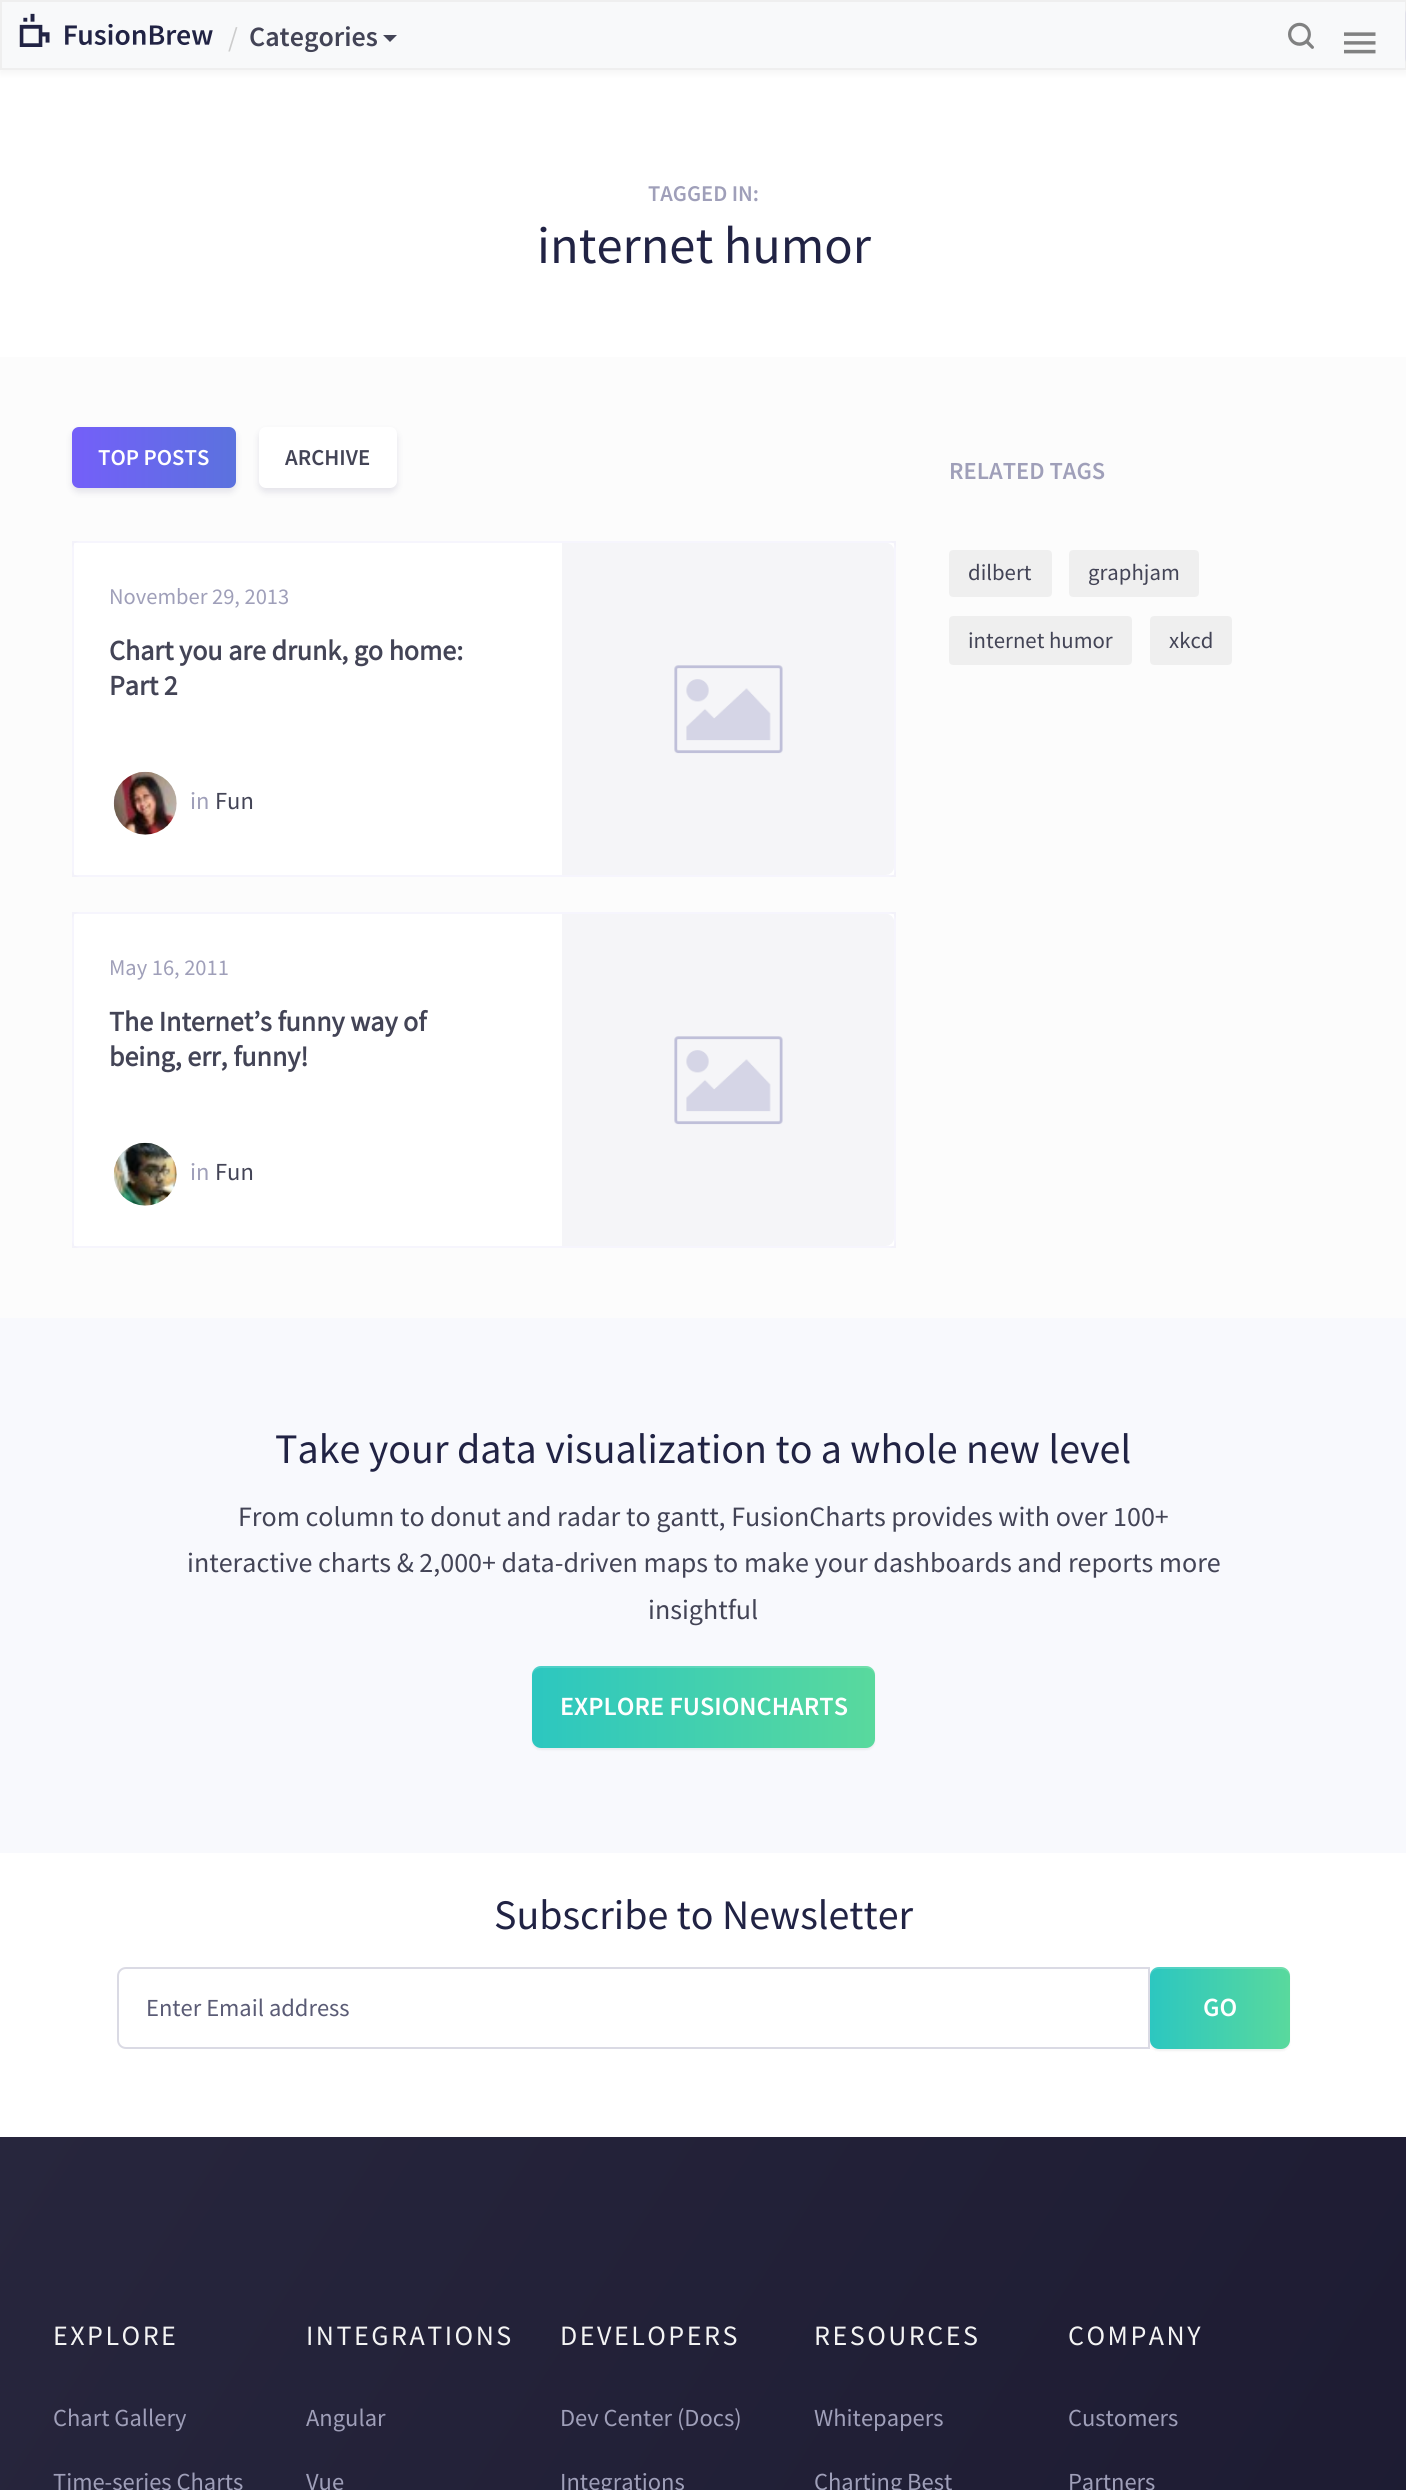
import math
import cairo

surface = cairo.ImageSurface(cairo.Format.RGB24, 1406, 2490)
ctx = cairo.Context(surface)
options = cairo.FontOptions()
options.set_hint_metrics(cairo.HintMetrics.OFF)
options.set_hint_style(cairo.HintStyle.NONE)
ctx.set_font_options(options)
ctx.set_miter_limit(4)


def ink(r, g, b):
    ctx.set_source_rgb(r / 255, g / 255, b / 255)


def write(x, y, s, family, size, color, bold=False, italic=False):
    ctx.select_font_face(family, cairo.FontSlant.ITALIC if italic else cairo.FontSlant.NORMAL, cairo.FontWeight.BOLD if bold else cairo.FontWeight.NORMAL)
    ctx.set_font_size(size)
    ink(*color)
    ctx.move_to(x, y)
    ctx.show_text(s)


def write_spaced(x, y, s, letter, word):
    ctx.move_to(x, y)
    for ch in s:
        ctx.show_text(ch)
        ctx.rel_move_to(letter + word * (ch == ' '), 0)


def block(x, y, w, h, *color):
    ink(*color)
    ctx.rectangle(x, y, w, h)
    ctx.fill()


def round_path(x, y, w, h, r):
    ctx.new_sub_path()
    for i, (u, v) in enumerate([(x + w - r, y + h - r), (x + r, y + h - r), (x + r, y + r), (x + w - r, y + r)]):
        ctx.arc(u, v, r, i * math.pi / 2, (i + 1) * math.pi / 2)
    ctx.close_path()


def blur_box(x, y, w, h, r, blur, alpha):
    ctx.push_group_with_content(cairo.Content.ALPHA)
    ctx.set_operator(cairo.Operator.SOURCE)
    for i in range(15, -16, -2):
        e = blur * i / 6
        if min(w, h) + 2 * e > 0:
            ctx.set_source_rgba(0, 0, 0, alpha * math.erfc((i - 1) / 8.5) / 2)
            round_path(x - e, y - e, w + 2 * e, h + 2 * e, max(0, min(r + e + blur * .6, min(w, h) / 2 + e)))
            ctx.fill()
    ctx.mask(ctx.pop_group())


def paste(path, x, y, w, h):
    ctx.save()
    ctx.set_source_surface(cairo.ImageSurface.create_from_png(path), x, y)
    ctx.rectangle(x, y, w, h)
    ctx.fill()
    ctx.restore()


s1 = dict(family="Source Sans Pro", size=28, color=(204, 204, 204))
s2 = dict(family="Source Sans Pro SemiBold", size=28, color=(67, 68, 86))
s3 = dict(family="Source Sans Pro SemiBold", size=22.5, color=(159, 159, 185))
s4 = dict(family="Source Sans Pro", size=52.5, color=(33, 35, 68))
s5 = dict(family="Source Sans Pro SemiBold", size=22.75, color=(255, 255, 255))
s6 = dict(family="Source Sans Pro SemiBold", size=22.75, color=(67, 68, 86))
s7 = dict(family="Source Sans Pro", size=22.5, color=(159, 159, 185))
s8 = dict(family="Source Sans Pro", size=28, color=(67, 68, 86), bold=True)
s9 = dict(family="Source Sans Pro", size=24.5, color=(159, 159, 185))
s10 = dict(family="Source Sans Pro", size=24.5, color=(67, 68, 86))
s11 = dict(family="Source Sans Pro SemiBold", size=24.5, color=(159, 159, 185))
s12 = dict(family="Source Sans Pro", size=22.75, color=(67, 68, 86))
s13 = dict(family="Source Sans Pro", size=42, color=(33, 35, 68))
s14 = dict(family="Source Sans Pro", size=28, color=(67, 68, 86))
s15 = dict(family="Source Sans Pro SemiBold", size=26.25, color=(255, 255, 255))
s16 = dict(family="Source Sans Pro", size=24.5, color=(90, 91, 117))

ink(255, 255, 255)
ctx.paint()
ink(0, 0, 0)
blur_box(0, 4, 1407, 70, 0, 3.5, 0.04)
ink(248, 249, 250)
ctx.rectangle(1, 1, 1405, 68)
ctx.fill_preserve()
ink(239, 239, 239)
ctx.stroke()
paste("pic1.png", 19, 13, 194, 34)
write(228, 47, "/", **s1)
write(249, 46, "Categories", **s2)
ctx.new_path()
ctx.move_to(383, 35)
ctx.line_to(397, 35)
ctx.line_to(390, 42)
ctx.close_path()
ctx.fill()
paste("pic2.png", 1288, 22, 26, 27)
ink(248, 249, 253)
round_path(1405, 7, 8, 58, 7)
ctx.fill()
round_path(1406, 8, 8, 56, 6)
ctx.set_source_rgba(0.243, 0.224, 0.42, 0.13)
ctx.stroke()
paste("pic3.png", 1344, 32, 32, 22)
write(648, 201, "TAGGED IN:", **s3)
write(537, 263, "internet humor", **s4)
block(0, 357, 1406, 961, 252, 252, 252)
ink(62, 57, 107)
blur_box(72, 431, 164, 61, 7, 3.5, 0.13)
gradient = cairo.LinearGradient(236, 458, 72, 458)
gradient.add_color_stop_rgba(0, 0.357, 0.447, 0.871, 1)
gradient.add_color_stop_rgba(1, 0.455, 0.373, 0.976, 1)
ctx.set_source(gradient)
round_path(72, 427, 164, 61, 7)
ctx.fill()
write(98, 465, "TOP POSTS", **s5)
ink(62, 57, 107)
blur_box(259, 431, 138, 61, 7, 3.5, 0.13)
ink(255, 255, 255)
round_path(259, 427, 138, 61, 7)
ctx.fill()
write(285, 465, "ARCHIVE", **s6)
ink(255, 255, 255)
round_path(72, 541, 824, 336, 9)
ctx.fill()
ctx.rectangle(73, 542, 822, 334)
ctx.set_source_rgba(0.412, 0.341, 0.855, 0.06)
ctx.stroke()
write(109, 604, "November 29, 2013", **s7)
write(109, 660, "Chart you are drunk, go home:", **s8)
write(109, 695, "Part 2", **s8)
paste("pic4.png", 113, 771, 64, 64)
write(190, 809, "in", **s9)
write(215, 809, "Fun", **s10)
paste("pic5.png", 562, 543, 332, 332)
ink(255, 255, 255)
round_path(72, 912, 824, 336, 9)
ctx.fill()
ctx.rectangle(73, 913, 822, 334)
ctx.set_source_rgba(0.412, 0.341, 0.855, 0.06)
ctx.stroke()
write(109, 975, "May 16, 2011", **s7)
write(109, 1031, "The Internet’s funny way of", **s8)
write(109, 1066, "being, err, funny!", **s8)
paste("pic6.png", 113, 1142, 64, 64)
write(190, 1180, "in", **s9)
write(215, 1180, "Fun", **s10)
paste("pic5.png", 562, 914, 332, 332)
write(949, 479, "RELATED TAGS", **s11)
ink(239, 239, 239)
round_path(950, 551, 101, 45, 3)
ctx.fill_preserve()
ctx.stroke()
write(968, 580, "dilbert", **s12)
ink(239, 239, 239)
round_path(1070, 551, 128, 45, 3)
ctx.fill_preserve()
ctx.stroke()
write(1088, 580, "graphjam", **s12)
ink(239, 239, 239)
round_path(950, 617, 181, 47, 3)
ctx.fill_preserve()
ctx.stroke()
write(968, 648, "internet humor", **s12)
ink(239, 239, 239)
round_path(1151, 617, 80, 47, 3)
ctx.fill_preserve()
ctx.stroke()
write(1169, 648, "xkcd", **s12)
block(0, 1318, 1406, 535, 248, 249, 253)
write(275, 1463, "Take your data visualization to a whole new level", **s13)
write(238, 1526, "From column to donut and radar to gantt, FusionCharts provides with over 100+", **s14)
write(187, 1572, "interactive charts & 2,000+ data-driven maps to make your dashboards and reports more", **s14)
write(648, 1619, "insightful", **s14)
ink(49, 49, 49)
blur_box(532, 1668, 343, 82, 9, 1, 0.07)
gradient = cairo.LinearGradient(532, 1707, 875, 1707)
gradient.add_color_stop_rgba(0, 0.173, 0.78, 0.753, 1)
gradient.add_color_stop_rgba(1, 0.349, 0.851, 0.616, 1)
ctx.set_source(gradient)
round_path(532, 1666, 343, 82, 9)
ctx.fill()
ctx.set_source_rgba(1, 1, 1, 0.15)
ctx.new_path()
ctx.move_to(541, 1668)
ctx.line_to(866, 1668)
ctx.curve_to(871, 1668, 875, 1672, 875, 1676)
ctx.line_to(875, 1675)
ctx.curve_to(875, 1670, 871, 1666, 866, 1666)
ctx.line_to(541, 1666)
ctx.curve_to(536, 1666, 532, 1670, 532, 1675)
ctx.line_to(532, 1676)
ctx.curve_to(532, 1672, 536, 1668, 541, 1668)
ctx.close_path()
ctx.fill()
write(560, 1715, "EXPLORE FUSIONCHARTS", **s15)
write(494, 1929, "Subscribe to Newsletter", **s13)
ink(49, 49, 49)
blur_box(1150, 1969, 140, 82, 9, 1, 0.07)
ctx.new_path()
ctx.move_to(126, 1968)
ctx.line_to(1149, 1968)
ctx.line_to(1149, 2048)
ctx.line_to(126, 2048)
ctx.curve_to(121.5, 2048, 118, 2044.5, 118, 2040)
ctx.line_to(118, 1976)
ctx.curve_to(118, 1971.5, 121.5, 1968, 126, 1968)
ctx.close_path()
ink(218, 218, 228)
ctx.stroke()
write(146, 2016, "Enter Email address", **s16)
gradient = cairo.LinearGradient(1150, 2008, 1290, 2008)
gradient.add_color_stop_rgba(0, 0.173, 0.78, 0.753, 1)
gradient.add_color_stop_rgba(1, 0.349, 0.851, 0.616, 1)
ctx.set_source(gradient)
round_path(1150, 1967, 140, 82, 9)
ctx.fill()
ctx.set_source_rgba(1, 1, 1, 0.15)
ctx.new_path()
ctx.move_to(1158, 1969)
ctx.line_to(1281, 1969)
ctx.curve_to(1286, 1969, 1290, 1973, 1290, 1978)
ctx.curve_to(1290, 1962, 1272, 1967, 1261, 1967)
ctx.line_to(1179, 1967)
ctx.curve_to(1168, 1967, 1150, 1962, 1150, 1978)
ctx.curve_to(1150, 1973, 1154, 1969, 1158, 1969)
ctx.close_path()
ctx.fill()
write(1203, 2016, "GO", **s15)
gradient = cairo.LinearGradient(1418, 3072, -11, 2154)
gradient.add_color_stop_rgba(0, 0.106, 0.098, 0.188, 1)
gradient.add_color_stop_rgba(1, 0.153, 0.149, 0.239, 1)
ctx.set_source(gradient)
ctx.rectangle(0, 2137, 1406, 353)
ctx.fill()
ctx.select_font_face("Source Sans Pro")
ctx.set_font_size(28)
ink(244, 244, 244)
write_spaced(53, 2345, "EXPLORE", 2.5, 0)
write(53, 2426, "Chart Gallery", **s9)
write(53, 2490, "Time-series Charts", **s9)
ctx.set_font_size(28)
ink(244, 244, 244)
write_spaced(306, 2345, "INTEGRATIONS", 2.5, 0)
write(306, 2426, "Angular", **s9)
write(306, 2490, "Vue", **s9)
ctx.set_font_size(28)
ink(244, 244, 244)
write_spaced(560, 2345, "DEVELOPERS", 2.5, 0)
write(560, 2426, "Dev Center (Docs)", **s9)
write(560, 2490, "Integrations", **s9)
ctx.set_font_size(28)
ink(244, 244, 244)
write_spaced(814, 2345, "RESOURCES", 2.5, 0)
write(814, 2426, "Whitepapers", **s9)
write(814, 2490, "Charting Best", **s9)
ctx.set_font_size(28)
ink(244, 244, 244)
write_spaced(1068, 2345, "COMPANY", 2.5, 0)
write(1068, 2426, "Customers", **s9)
write(1068, 2490, "Partners", **s9)
surface.write_to_png("screenshot.png")
